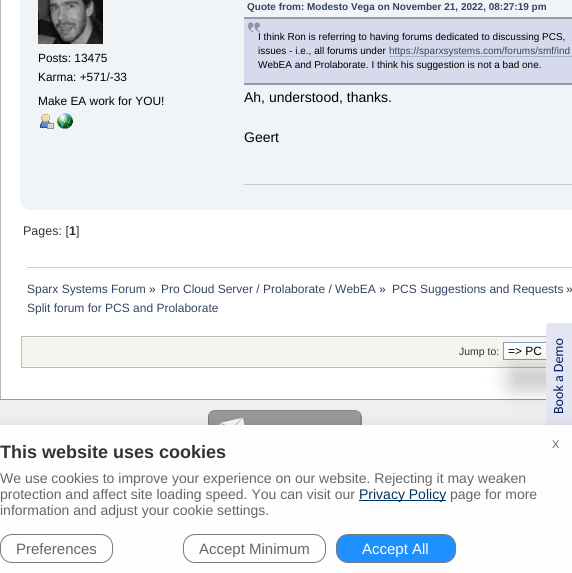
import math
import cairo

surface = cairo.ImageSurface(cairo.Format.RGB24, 572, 573)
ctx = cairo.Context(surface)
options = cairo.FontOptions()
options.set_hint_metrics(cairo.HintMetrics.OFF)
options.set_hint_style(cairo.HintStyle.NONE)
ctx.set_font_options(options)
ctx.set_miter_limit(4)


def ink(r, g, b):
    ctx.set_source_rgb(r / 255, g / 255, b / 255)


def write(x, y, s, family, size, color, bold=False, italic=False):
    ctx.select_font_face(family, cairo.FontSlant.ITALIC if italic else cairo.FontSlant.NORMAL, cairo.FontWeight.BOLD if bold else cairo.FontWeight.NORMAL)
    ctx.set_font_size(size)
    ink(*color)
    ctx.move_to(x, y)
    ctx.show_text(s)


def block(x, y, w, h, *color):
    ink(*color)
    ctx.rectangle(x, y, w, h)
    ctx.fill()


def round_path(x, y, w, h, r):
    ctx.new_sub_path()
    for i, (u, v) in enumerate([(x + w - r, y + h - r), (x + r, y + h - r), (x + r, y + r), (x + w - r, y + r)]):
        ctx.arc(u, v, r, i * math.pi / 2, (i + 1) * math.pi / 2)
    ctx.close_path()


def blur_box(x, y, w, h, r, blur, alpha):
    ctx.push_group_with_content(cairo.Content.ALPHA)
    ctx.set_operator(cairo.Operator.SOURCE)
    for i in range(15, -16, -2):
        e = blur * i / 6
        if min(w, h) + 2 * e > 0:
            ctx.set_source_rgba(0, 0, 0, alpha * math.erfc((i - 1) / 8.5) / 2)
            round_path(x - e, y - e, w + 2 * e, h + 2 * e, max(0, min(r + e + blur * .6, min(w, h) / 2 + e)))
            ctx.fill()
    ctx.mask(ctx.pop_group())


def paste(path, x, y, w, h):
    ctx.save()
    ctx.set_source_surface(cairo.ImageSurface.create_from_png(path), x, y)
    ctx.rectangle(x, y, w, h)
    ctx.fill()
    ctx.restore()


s1 = dict(family="Liberation Sans", size=11.9, color=(0, 0, 0))
s2 = dict(family="Liberation Sans", size=10, color=(51, 68, 102), bold=True)
s3 = dict(family="Liberation Sans", size=10, color=(0, 0, 0))
s4 = dict(family="Liberation Sans", size=10, color=(51, 68, 102))
s5 = dict(family="Liberation Sans", size=14, color=(0, 0, 0))
s6 = dict(family="Liberation Sans", size=12.5, color=(51, 51, 51))
s7 = dict(family="Liberation Sans", size=12.5, color=(51, 51, 51), bold=True)
s8 = dict(family="Liberation Sans", size=12, color=(51, 68, 102))
s9 = dict(family="Liberation Sans", size=12, color=(51, 51, 51))
s10 = dict(family="Liberation Sans", size=10.5, color=(51, 51, 51))
s11 = dict(family="Liberation Sans", size=12, color=(0, 0, 0))
s12 = dict(family="Carlito", size=14, color=(0, 30, 99))
s13 = dict(family="Liberation Sans", size=18, color=(51, 51, 51), bold=True)
s14 = dict(family="Liberation Sans", size=14, color=(102, 102, 102))
s15 = dict(family="Liberation Sans", size=14, color=(0, 52, 96))
s16 = dict(family="Liberation Sans", size=15, color=(102, 102, 102))
s17 = dict(family="Liberation Sans", size=15, color=(255, 255, 255))
s18 = dict(family="Liberation Sans", size=11, color=(102, 102, 102))

ink(255, 255, 255)
ctx.paint()
block(0, 0, 1, 399, 183, 183, 183)
block(20, 0, 552, 210, 240, 244, 247)
paste("pic1.png", 38, 0, 65, 44)
write(38, 62, "Posts: 13475", **s1)
write(38, 81, "Karma: +571/-33", **s1)
write(38, 105, "Make EA work for YOU!", **s1)
paste("pic2.png", 40, 114, 14, 15)
paste("pic3.png", 57, 113, 16, 16)
write(247, 10, "Quote from: Modesto Vega on November 21, 2022, 08:27:19 pm", **s2)
block(244, 19, 328, 64, 215, 218, 236)
paste("pic4.png", 248, 22, 13, 11)
block(244, 17, 328, 2, 153, 153, 170)
block(244, 83, 328, 2, 153, 153, 170)
write(258, 40, "I think Ron is referring to having forums dedicated to discussing PCS,", **s3)
write(258, 54, "issues - i.e., all forums under", **s3)
block(389, 56, 183, 1, 168, 182, 207)
write(389, 54, "https://sparxsystems.com/forums/smf/ind", **s4)
write(258, 68, "WebEA and Prolaborate. I think his suggestion is not a bad one.", **s3)
write(244, 102, "Ah, understood, thanks.", **s5)
write(244, 142, "Geert", **s5)
block(244, 184, 328, 1, 204, 204, 204)
paste("pic5.png", 20, 202, 8, 8)
write(23, 235, "Pages: [", **s6)
write(69, 235, "1", **s7)
write(76, 235, "]", **s6)
block(27, 267, 545, 1, 204, 204, 204)
write(27, 293, "Sparx Systems Forum", **s8)
write(149, 293, "»", **s9)
write(161, 293, "Pro Cloud Server / Prolaborate / WebEA", **s8)
write(379, 293, "»", **s9)
write(392, 293, "PCS Suggestions and Requests", **s8)
write(566, 293, "»", **s9)
write(27, 312, "Split forum for PCS and Prolaborate", **s8)
block(22, 337, 524, 30, 245, 245, 240)
ctx.rectangle(21.5, 336.5, 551, 31)
ink(187, 187, 187)
ctx.set_line_width(1)
ctx.stroke()
write(459, 355, "Jump to:", **s10)
block(504, 343, 42, 16, 255, 255, 255)
ctx.rectangle(503.5, 342.5, 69, 17)
ink(127, 157, 185)
ctx.stroke()
write(508, 355, "=> PC", **s11)
block(0, 400, 546, 25, 240, 240, 240)
block(0, 399, 546, 1, 153, 153, 153)
paste("pic6.png", 208, 410, 154, 15)
ink(0, 0, 0)
blur_box(508, 365, 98, 26, 4, 10, 0.2)
ink(228, 229, 243)
ctx.new_path()
ctx.move_to(546, 425)
ctx.line_to(546, 327)
ctx.curve_to(546, 325, 548, 323, 550, 323)
ctx.line_to(572, 323)
ctx.line_to(572, 429)
ctx.line_to(550, 429)
ctx.curve_to(548, 429, 546, 427, 546, 425)
ctx.close_path()
ctx.fill()
ctx.save()
ctx.translate(563, 414)
ctx.rotate(-90 * math.pi / 180)
write(0, 0, "Book a Demo", **s12)
ctx.restore()
ink(0, 0, 0)
blur_box(0, 431, 572, 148, 0, 10, 0.19)
block(0, 425, 572, 148, 254, 254, 254)
write(0, 458, "This website uses cookies", **s13)
write(0, 483, "We use cookies to improve your experience on our website. Rejecting it may weaken", **s14)
write(0, 499, "protection and affect site loading speed. You can visit our", **s14)
block(359, 500, 87, 1, 0, 52, 96)
write(359, 499, "Privacy Policy", **s15)
write(450, 499, "page for more", **s14)
write(0, 515, "information and adjust your cookie settings.", **s14)
round_path(0.5, 534.5, 112, 28, 11.5)
ink(122, 122, 122)
ctx.stroke()
write(16, 554, "Preferences", **s16)
round_path(183.5, 534.5, 142, 28, 11.5)
ink(122, 122, 122)
ctx.stroke()
write(199, 554, "Accept Minimum", **s16)
ink(30, 144, 255)
round_path(336.5, 534.5, 119, 28, 11.5)
ctx.fill_preserve()
ink(122, 122, 122)
ctx.stroke()
write(362, 554, "Accept All", **s17)
write(552, 448, "X", **s18)
surface.write_to_png("screenshot.png")
